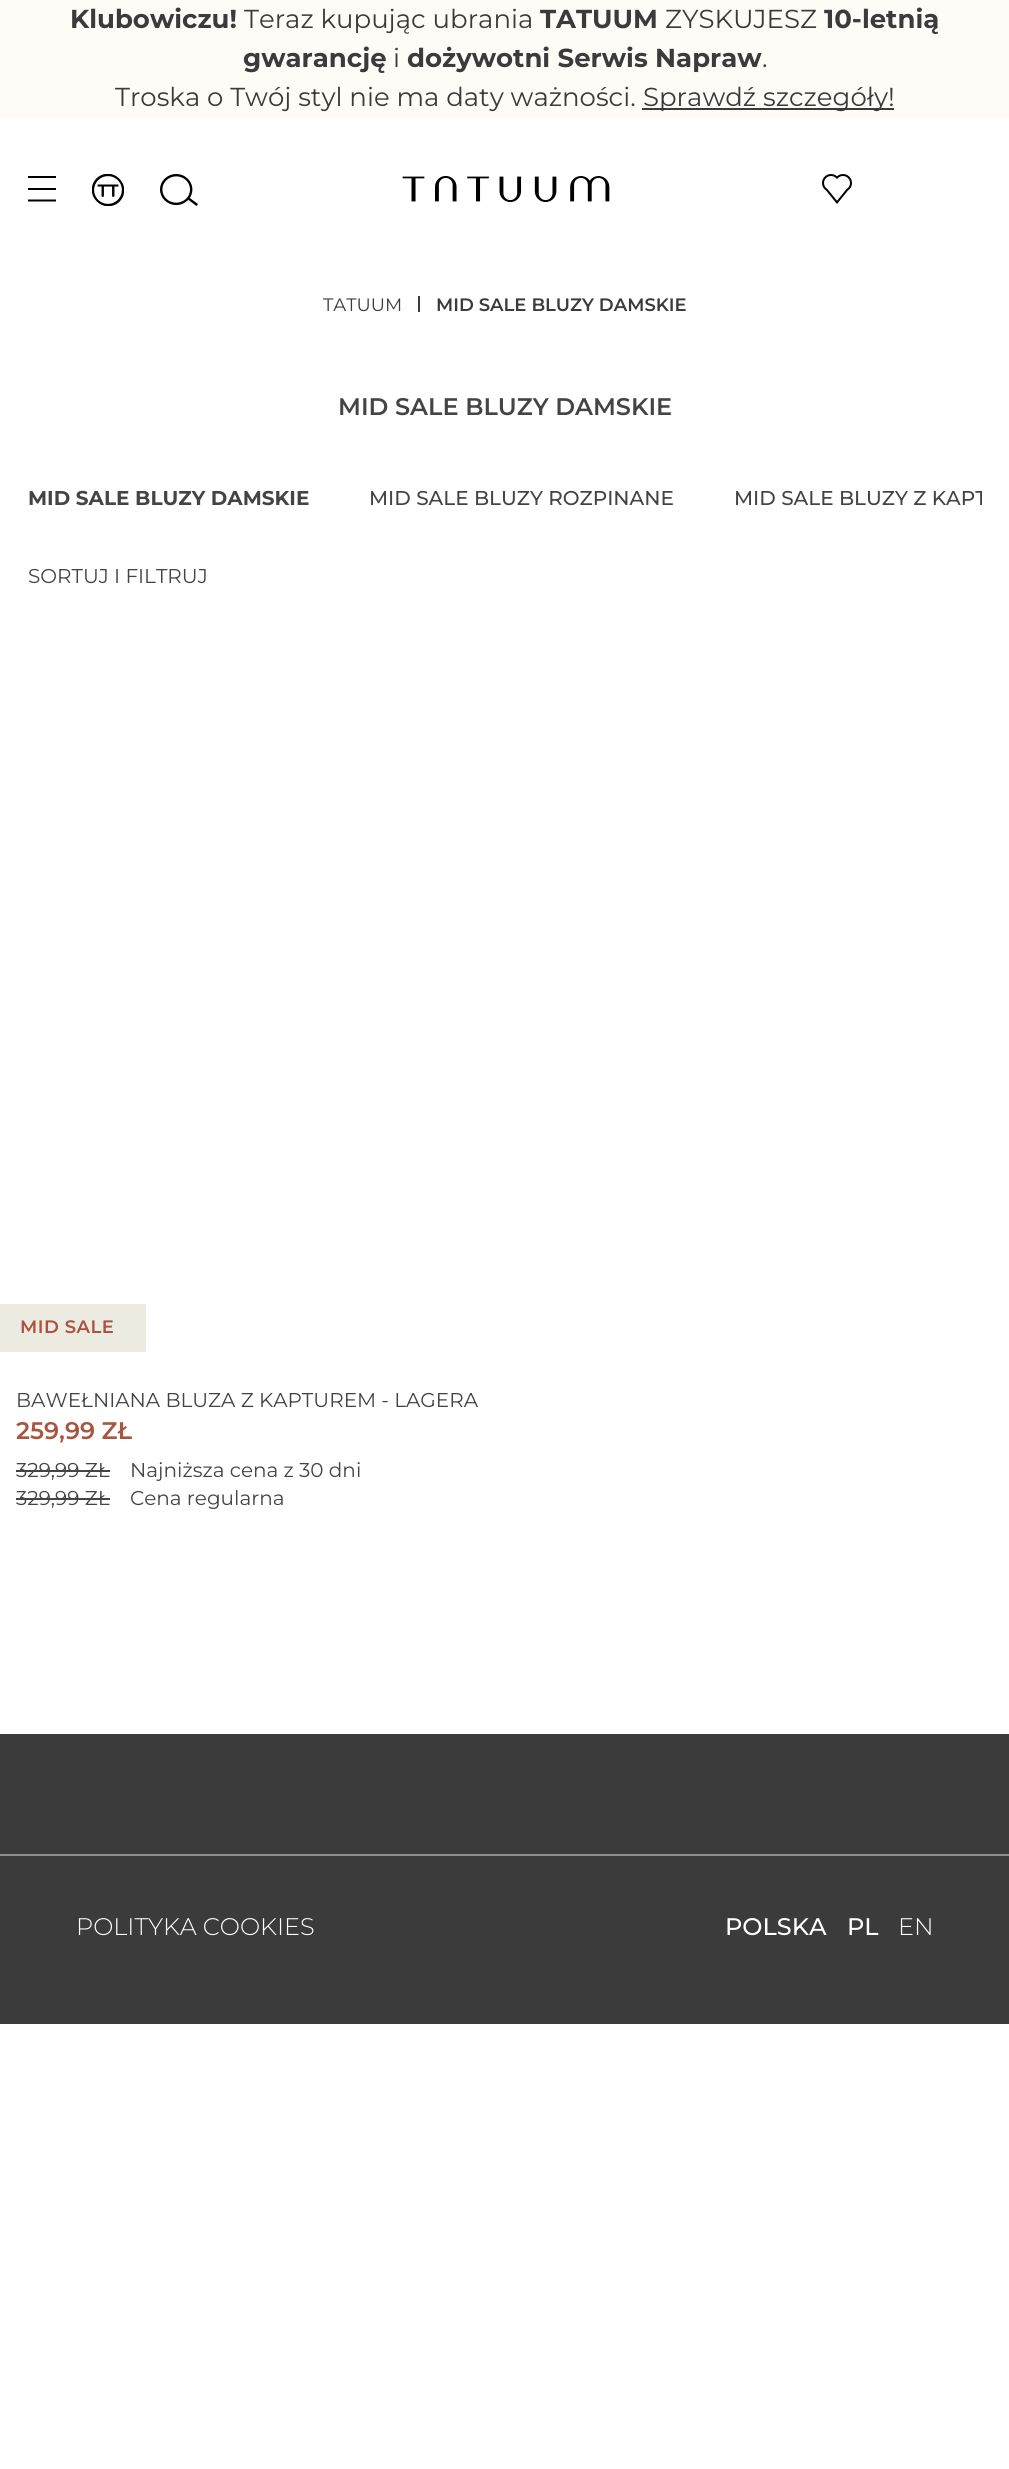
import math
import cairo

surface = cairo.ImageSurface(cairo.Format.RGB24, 1009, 2469)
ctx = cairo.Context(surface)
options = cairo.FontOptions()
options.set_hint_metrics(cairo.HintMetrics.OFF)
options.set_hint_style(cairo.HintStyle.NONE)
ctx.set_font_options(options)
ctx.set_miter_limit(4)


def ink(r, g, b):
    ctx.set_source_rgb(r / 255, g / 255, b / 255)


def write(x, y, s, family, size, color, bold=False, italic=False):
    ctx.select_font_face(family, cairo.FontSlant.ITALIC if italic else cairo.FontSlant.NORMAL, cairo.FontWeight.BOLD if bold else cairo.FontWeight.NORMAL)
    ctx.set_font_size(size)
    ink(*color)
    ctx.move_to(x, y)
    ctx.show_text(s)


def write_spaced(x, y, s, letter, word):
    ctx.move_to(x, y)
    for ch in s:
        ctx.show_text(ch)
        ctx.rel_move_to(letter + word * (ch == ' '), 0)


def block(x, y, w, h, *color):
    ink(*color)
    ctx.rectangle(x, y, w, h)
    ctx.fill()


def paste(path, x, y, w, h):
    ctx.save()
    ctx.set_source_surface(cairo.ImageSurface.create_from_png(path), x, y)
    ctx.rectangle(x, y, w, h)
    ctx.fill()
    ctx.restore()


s1 = dict(family="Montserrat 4 Thin", size=26, color=(59, 59, 59))
s2 = dict(family="Montserrat Thin", size=26, color=(59, 59, 59))
s3 = dict(family="Montserrat Thin", size=18, color=(59, 59, 59))
s4 = dict(family="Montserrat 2 Thin", size=18, color=(59, 59, 59))
s5 = dict(family="Montserrat 2 Thin", size=24, color=(68, 68, 68))
s6 = dict(family="Montserrat 4 Thin", size=20, color=(68, 68, 68))
s7 = dict(family="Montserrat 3 Thin", size=20, color=(68, 68, 68))
s8 = dict(family="Montserrat Thin", size=20, color=(68, 68, 68))
s9 = dict(family="Montserrat 2 Thin", size=24, color=(167, 87, 64))
s10 = dict(family="Montserrat Light", size=24, color=(255, 255, 255))
s11 = dict(family="Montserrat 3 Thin", size=24, color=(255, 255, 255))

ink(255, 255, 255)
ctx.paint()
block(0, 0, 1009, 118, 255, 252, 247)
write(70, 28, "Klubowiczu!", **s1)
write(244, 28, "Teraz kupując ubrania", **s2)
write(540, 28, "TATUUM", **s1)
write(665, 28, "ZYSKUJESZ", **s2)
write(824, 28, "10-letnią", **s1)
write(243, 67, "gwarancję", **s1)
write(393, 67, "i", **s2)
write(407, 67, "dożywotni Serwis Napraw", **s1)
write(762, 67, ".", **s2)
write(115, 106, "Troska o Twój styl nie ma daty ważności.", **s2)
block(642, 108, 252, 2, 59, 59, 59)
write(643, 106, "Sprawdź szczegóły!", **s2)
block(28, 176, 28, 2, 0, 0, 0)
block(28, 188, 28, 2, 0, 0, 0)
ctx.new_path()
ctx.move_to(28, 200.5)
ctx.line_to(56, 200.5)
ctx.stroke()
paste("pic1.png", 92, 174, 32, 32)
paste("pic2.png", 160, 174, 38, 32)
paste("pic3.png", 402, 176, 208, 26)
paste("pic4.png", 822, 174, 30, 30)
write(323, 311, "TATUUM", **s3)
block(418, 296, 2, 16, 59, 59, 59)
write(436, 311, "MID SALE BLUZY DAMSKIE", **s4)
write(338, 415, "MID SALE BLUZY DAMSKIE", **s5)
write(28, 505, "MID SALE BLUZY DAMSKIE", **s6)
write(369, 505, "MID SALE BLUZY ROZPINANE", **s7)
ctx.save()
ctx.rectangle(28, 472, 954, 48)
ctx.clip()
write(734, 505, "MID SALE BLUZY Z KAPT", **s7)
ctx.restore()
write(28, 583, "SORTUJ I FILTRUJ", **s8)
block(0, 1304, 146, 48, 236, 235, 226)
ctx.select_font_face("Montserrat 2 Thin")
ctx.set_font_size(18)
ink(173, 80, 61)
write_spaced(20, 1333, "MID SALE", 0.5, 0)
write(16, 1407, "BAWEŁNIANA BLUZA Z KAPTUREM - LAGERA", **s8)
write(16, 1439, "259,99 ZŁ", **s9)
write(16, 1477, "329,99 ZŁ", **s8)
block(16, 1470, 94, 2, 68, 68, 68)
write(130, 1477, "Najniższa cena z 30 dni", **s8)
write(16, 1505, "329,99 ZŁ", **s8)
block(16, 1498, 94, 2, 68, 68, 68)
write(130, 1505, "Cena regularna", **s8)
block(0, 1734, 1009, 120, 59, 59, 59)
block(0, 1856, 1009, 168, 59, 59, 59)
block(0, 1854, 1009, 2, 142, 142, 142)
write(76, 1935, "POLITYKA COOKIES", **s10)
write(725, 1935, "POLSKA", **s11)
write(847, 1935, "PL", **s11)
write(898, 1935, "EN", **s10)
surface.write_to_png("screenshot.png")
